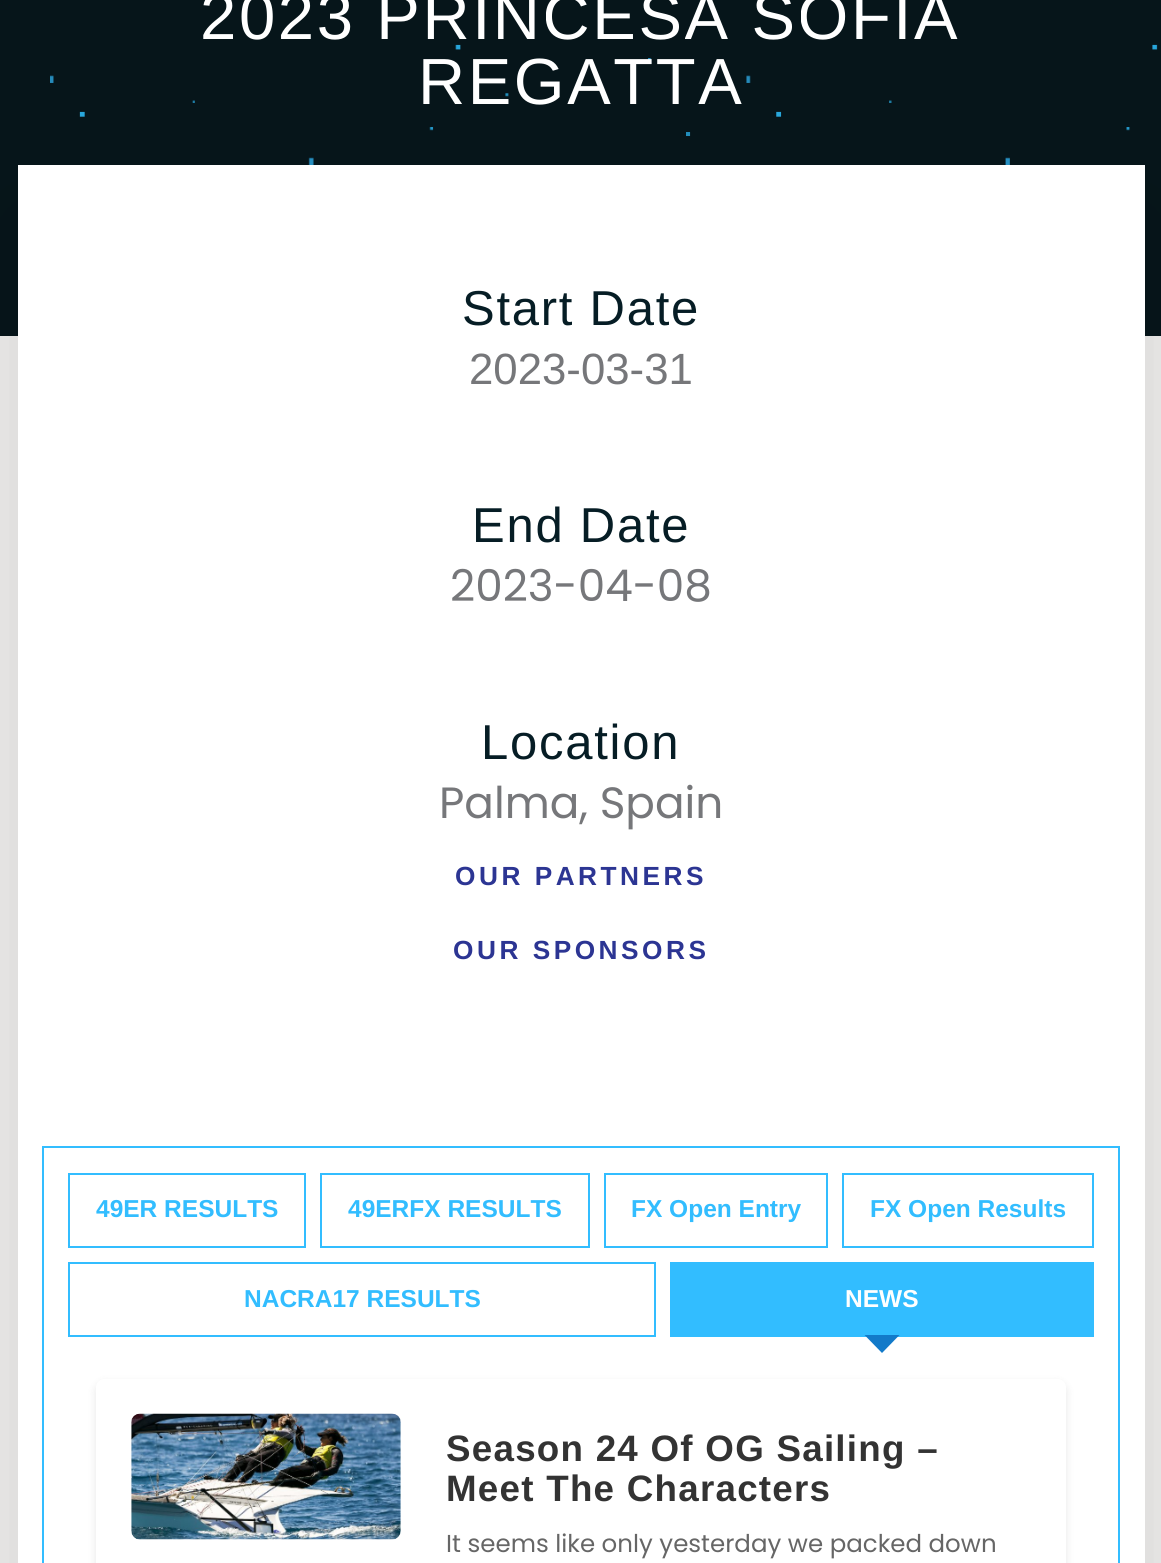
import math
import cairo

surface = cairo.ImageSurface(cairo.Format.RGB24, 1161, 1563)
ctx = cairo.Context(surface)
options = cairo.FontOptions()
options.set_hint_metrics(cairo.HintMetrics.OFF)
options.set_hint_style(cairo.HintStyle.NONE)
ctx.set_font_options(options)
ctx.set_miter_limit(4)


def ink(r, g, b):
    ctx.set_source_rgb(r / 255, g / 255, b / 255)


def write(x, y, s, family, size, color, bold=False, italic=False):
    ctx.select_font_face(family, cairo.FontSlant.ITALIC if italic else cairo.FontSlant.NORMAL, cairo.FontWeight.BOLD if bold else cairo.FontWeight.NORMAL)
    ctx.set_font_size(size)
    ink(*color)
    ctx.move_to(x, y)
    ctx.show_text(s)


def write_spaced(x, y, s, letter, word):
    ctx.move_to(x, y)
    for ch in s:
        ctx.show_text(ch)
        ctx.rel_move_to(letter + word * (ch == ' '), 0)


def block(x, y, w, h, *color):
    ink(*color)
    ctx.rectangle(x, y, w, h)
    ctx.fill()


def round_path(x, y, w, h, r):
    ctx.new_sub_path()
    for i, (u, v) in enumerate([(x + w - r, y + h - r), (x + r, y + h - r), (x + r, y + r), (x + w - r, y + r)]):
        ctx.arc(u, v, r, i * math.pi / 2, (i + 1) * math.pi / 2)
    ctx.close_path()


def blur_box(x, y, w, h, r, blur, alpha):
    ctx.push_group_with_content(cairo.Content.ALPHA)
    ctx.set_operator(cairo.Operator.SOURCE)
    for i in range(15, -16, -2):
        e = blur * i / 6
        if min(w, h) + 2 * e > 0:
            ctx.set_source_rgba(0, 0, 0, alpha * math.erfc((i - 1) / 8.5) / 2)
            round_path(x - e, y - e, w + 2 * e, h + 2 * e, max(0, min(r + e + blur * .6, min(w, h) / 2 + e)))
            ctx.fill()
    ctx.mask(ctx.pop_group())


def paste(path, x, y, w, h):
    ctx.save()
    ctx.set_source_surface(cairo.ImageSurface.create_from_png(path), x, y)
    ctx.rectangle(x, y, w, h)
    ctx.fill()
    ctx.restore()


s1 = dict(family="Liberation Sans", size=43.75, color=(118, 119, 122))
s2 = dict(family="Poppins", size=43.75, color=(118, 119, 122))
s3 = dict(family="Liberation Sans", size=24.5, color=(50, 189, 255), bold=True)
s4 = dict(family="Liberation Sans", size=24.5, color=(255, 255, 255), bold=True)
s5 = dict(family="Poppins", size=24.5, color=(102, 102, 102))

ink(236, 235, 234)
ctx.paint()
block(0, 0, 1161, 336, 6, 21, 26)
paste("pic1.png", 50, 44, 1108, 121)
ctx.select_font_face("Liberation Sans")
ctx.set_font_size(65.25)
ink(255, 255, 255)
write_spaced(200, 39, "2023 PRINCESA SOFIA", 2.6, 0)
write_spaced(418, 104, "REGATTA", 2.6, 0)
ink(0, 0, 0)
blur_box(18, 217, 1127, 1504, 0, 52.5, 0.1)
block(18, 165, 1127, 1398, 255, 255, 255)
ctx.set_font_size(49)
ink(6, 29, 37)
write_spaced(462, 325, "Start Date", 1.75, 0)
write(469, 384, "2023-03-31", **s1)
ctx.set_font_size(49)
ink(6, 29, 37)
write_spaced(472, 542, "End Date", 1.75, 0)
write(450, 601, "2023-04-08", **s2)
ctx.select_font_face("Liberation Sans")
ctx.set_font_size(49)
ink(6, 29, 37)
write_spaced(481, 759, "Location", 1.75, 0)
write(439, 818, "Palma, Spain", **s2)
ctx.select_font_face("Liberation Sans", cairo.FontSlant.NORMAL, cairo.FontWeight.BOLD)
ctx.set_font_size(26.25)
ink(44, 53, 147)
write_spaced(455, 885, "OUR PARTNERS", 3.5, 0)
write_spaced(453, 959, "OUR SPONSORS", 3.5, 0)
ctx.rectangle(43, 1147, 1076, 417)
ink(50, 189, 255)
ctx.stroke()
ctx.rectangle(69, 1174, 236, 73)
ctx.stroke()
write(96, 1217, "49ER RESULTS", **s3)
ctx.rectangle(321, 1174, 268, 73)
ctx.stroke()
write(348, 1217, "49ERFX RESULTS", **s3)
ctx.rectangle(605, 1174, 222, 73)
ctx.stroke()
write(631, 1217, "FX Open Entry", **s3)
ctx.rectangle(843, 1174, 250, 73)
ctx.stroke()
write(870, 1217, "FX Open Results", **s3)
ctx.rectangle(69, 1263, 586, 73)
ctx.stroke()
write(244, 1307, "NACRA17 RESULTS", **s3)
block(670, 1262, 424, 75, 50, 189, 255)
write(845, 1307, "NEWS", **s4)
ink(18, 122, 201)
ctx.new_path()
ctx.move_to(864.5, 1335)
ctx.line_to(899.5, 1335)
ctx.line_to(882, 1353)
ctx.close_path()
ctx.fill()
ctx.save()
ctx.set_fill_rule(cairo.FillRule.EVEN_ODD)
ctx.new_path()
ctx.move_to(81, 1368)
ctx.line_to(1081, 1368)
ctx.line_to(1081, 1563)
ctx.line_to(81, 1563)
ctx.close_path()
ctx.move_to(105, 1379)
ctx.line_to(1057, 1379)
ctx.curve_to(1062, 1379, 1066, 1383, 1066, 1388)
ctx.line_to(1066, 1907)
ctx.curve_to(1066, 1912, 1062, 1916, 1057, 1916)
ctx.line_to(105, 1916)
ctx.curve_to(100, 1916, 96, 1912, 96, 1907)
ctx.line_to(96, 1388)
ctx.curve_to(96, 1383, 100, 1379, 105, 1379)
ctx.close_path()
ctx.clip()
ink(0, 0, 0)
blur_box(96, 1383, 970, 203, 9, 4.5, 0.1)
ctx.restore()
paste("pic2.png", 131, 1413, 270, 127)
ctx.set_font_size(36.75)
ink(51, 51, 51)
write_spaced(446, 1461, "Season 24 Of OG Sailing –", 1.25, 0)
write_spaced(446, 1501, "Meet The Characters", 1.25, 0)
write(446, 1552, "It seems like only yesterday we packed down", **s5)
surface.write_to_png("screenshot.png")
